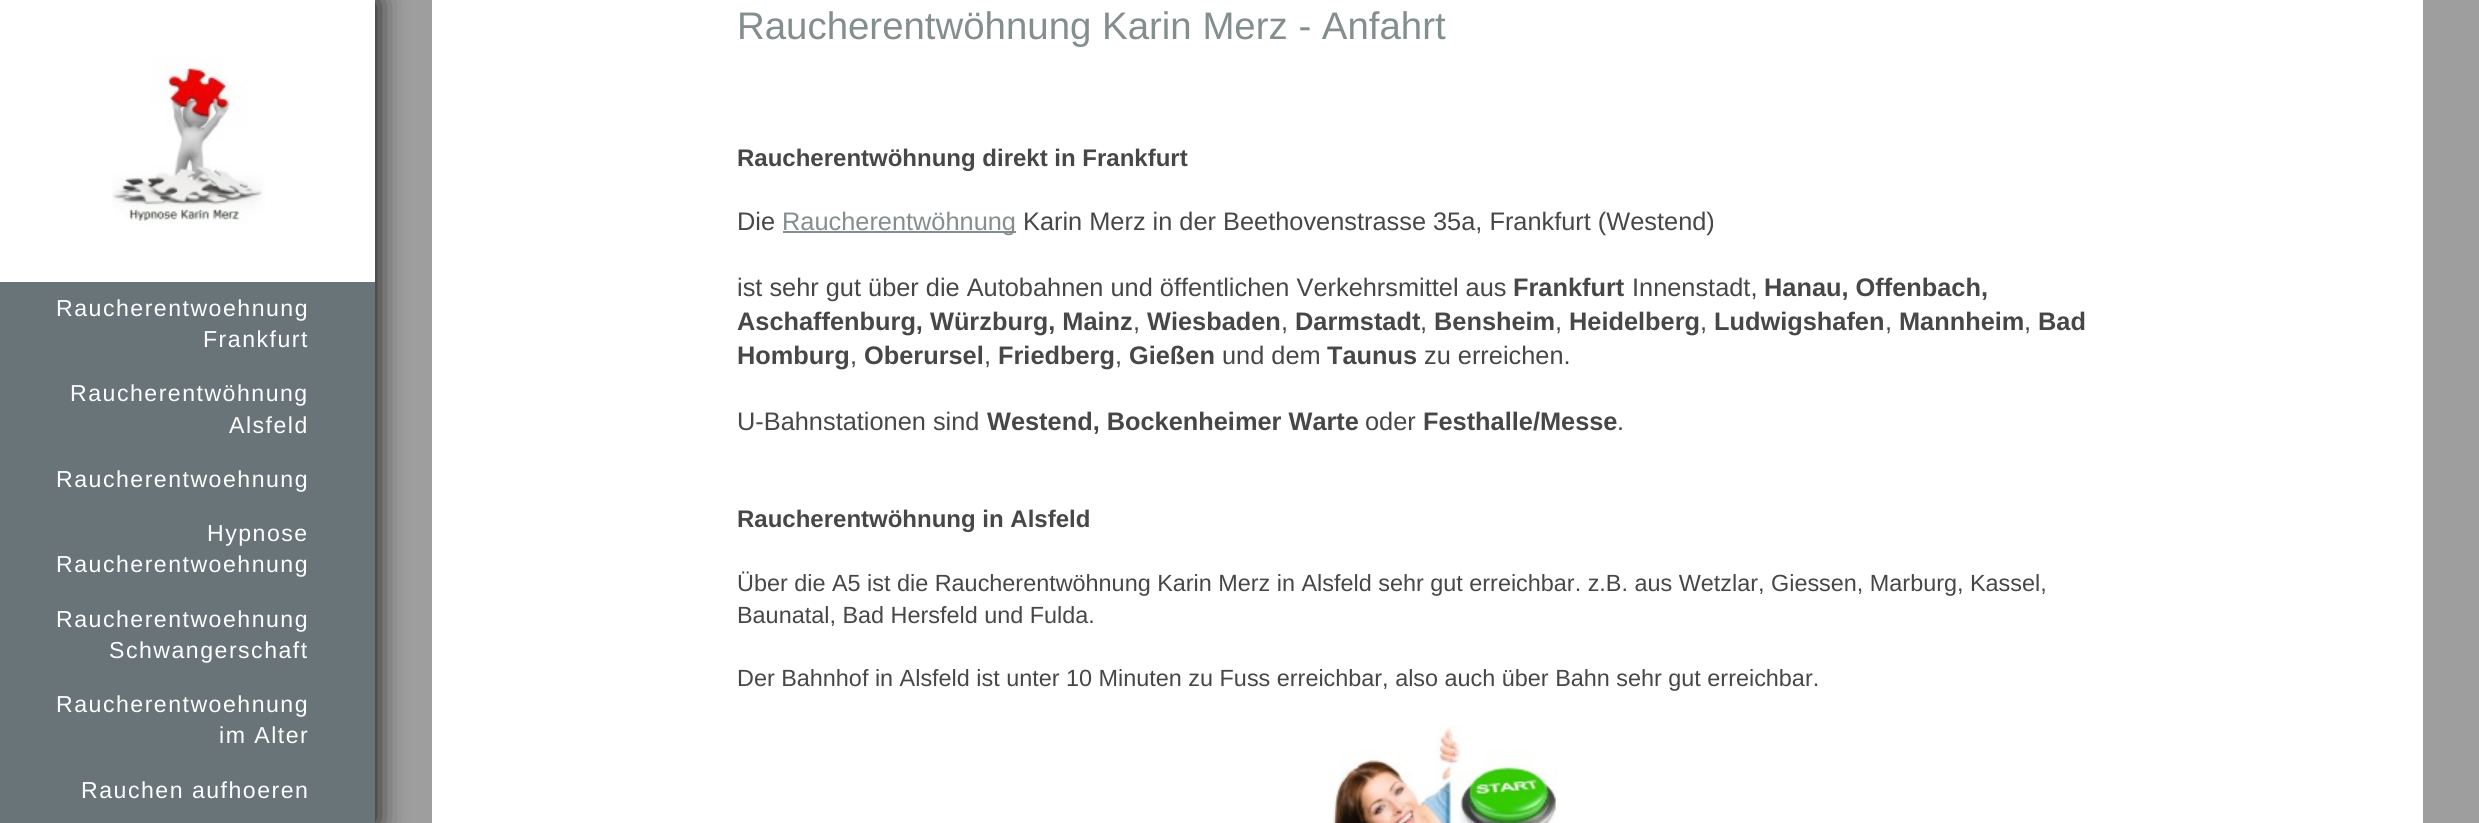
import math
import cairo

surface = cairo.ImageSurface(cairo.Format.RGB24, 2479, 823)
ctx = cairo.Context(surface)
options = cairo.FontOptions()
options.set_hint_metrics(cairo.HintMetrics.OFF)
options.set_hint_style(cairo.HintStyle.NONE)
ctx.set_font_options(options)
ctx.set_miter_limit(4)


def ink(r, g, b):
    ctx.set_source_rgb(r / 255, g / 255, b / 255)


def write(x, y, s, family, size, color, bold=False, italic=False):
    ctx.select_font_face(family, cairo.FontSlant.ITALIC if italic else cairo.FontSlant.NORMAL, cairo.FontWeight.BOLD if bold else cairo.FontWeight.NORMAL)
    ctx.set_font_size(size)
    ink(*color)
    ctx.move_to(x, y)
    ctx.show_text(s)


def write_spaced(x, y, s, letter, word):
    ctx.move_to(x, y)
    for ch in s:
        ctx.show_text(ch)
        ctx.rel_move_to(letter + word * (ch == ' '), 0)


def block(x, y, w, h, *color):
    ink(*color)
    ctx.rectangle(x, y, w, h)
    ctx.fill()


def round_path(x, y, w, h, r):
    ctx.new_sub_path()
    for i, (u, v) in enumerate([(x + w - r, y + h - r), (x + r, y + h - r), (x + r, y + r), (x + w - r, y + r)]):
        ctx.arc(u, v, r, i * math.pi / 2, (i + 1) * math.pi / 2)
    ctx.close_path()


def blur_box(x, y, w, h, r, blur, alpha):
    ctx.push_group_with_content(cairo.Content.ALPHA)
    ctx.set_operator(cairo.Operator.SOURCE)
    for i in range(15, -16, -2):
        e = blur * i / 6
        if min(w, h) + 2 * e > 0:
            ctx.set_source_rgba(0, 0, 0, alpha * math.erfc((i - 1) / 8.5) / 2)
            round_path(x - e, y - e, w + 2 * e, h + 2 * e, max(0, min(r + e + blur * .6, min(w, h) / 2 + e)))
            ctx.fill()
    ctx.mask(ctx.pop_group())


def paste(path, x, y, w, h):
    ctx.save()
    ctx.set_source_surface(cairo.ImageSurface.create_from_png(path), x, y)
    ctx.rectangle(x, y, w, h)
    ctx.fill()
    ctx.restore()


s1 = dict(family="Liberation Sans", size=38.4, color=(131, 142, 142))
s2 = dict(family="Liberation Sans", size=24, color=(71, 71, 71), bold=True)
s3 = dict(family="Liberation Sans", size=25.35, color=(71, 71, 71))
s4 = dict(family="Liberation Sans", size=25.35, color=(131, 142, 142))
s5 = dict(family="Liberation Sans", size=25.35, color=(71, 71, 71), bold=True)
s6 = dict(family="Liberation Sans", size=23.4, color=(71, 71, 71))

ink(158, 158, 158)
ctx.paint()
ink(0, 0, 0)
blur_box(0, 0, 375, 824, 0, 15, 1)
block(432, 0, 1991, 823, 255, 255, 255)
write(737, 39, "Raucherentwöhnung Karin Merz - Anfahrt", **s1)
write(737, 166, "Raucherentwöhnung direkt in Frankfurt", **s2)
write(737, 230, "Die", **s3)
block(783, 231, 233, 2, 131, 142, 142)
write(782, 230, "Raucherentwöhnung", **s4)
write(1023, 230, "Karin Merz in der Beethovenstrasse 35a, Frankfurt (Westend)", **s3)
write(737, 296, "ist sehr gut über die Autobahnen und öffentlichen Verkehrsmittel aus", **s3)
write(1513, 296, "Frankfurt", **s5)
write(1632, 296, "Innenstadt,", **s3)
write(1764, 296, "Hanau, Offenbach,", **s5)
write(737, 330, "Aschaffenburg, Würzburg, Mainz", **s5)
write(1133, 330, ",", **s3)
write(1147, 330, "Wiesbaden", **s5)
write(1281, 330, ",", **s3)
write(1295, 330, "Darmstadt", **s5)
write(1420, 330, ",", **s3)
write(1434, 330, "Bensheim", **s5)
write(1555, 330, ",", **s3)
write(1569, 330, "Heidelberg", **s5)
write(1700, 330, ",", **s3)
write(1714, 330, "Ludwigshafen", **s5)
write(1885, 330, ",", **s3)
write(1899, 330, "Mannheim", **s5)
write(2024, 330, ",", **s3)
write(2038, 330, "Bad", **s5)
write(737, 364, "Homburg", **s5)
write(850, 364, ",", **s3)
write(864, 364, "Oberursel", **s5)
write(984, 364, ",", **s3)
write(998, 364, "Friedberg", **s5)
write(1115, 364, ",", **s3)
write(1129, 364, "Gießen", **s5)
write(1222, 364, "und dem", **s3)
write(1327, 364, "Taunus", **s5)
write(1424, 364, "zu erreichen.", **s3)
write(737, 430, "U-Bahnstationen sind", **s3)
write(987, 430, "Westend, Bockenheimer Warte", **s5)
write(1365, 430, "oder", **s3)
write(1423, 430, "Festhalle/Messe", **s5)
write(1617, 430, ".", **s3)
write(737, 527, "Raucherentwöhnung in Alsfeld", **s2)
write(737, 591, "Über die A5 ist die Raucherentwöhnung Karin Merz in Alsfeld sehr gut erreichbar. z.B. aus Wetzlar, Giessen, Marburg, Kassel,", **s6)
write(737, 623, "Baunatal, Bad Hersfeld und Fulda.", **s6)
write(737, 686, "Der Bahnhof in Alsfeld ist unter 10 Minuten zu Fuss erreichbar, also auch über Bahn sehr gut erreichbar.", **s6)
paste("pic1.png", 1329, 725, 229, 98)
block(0, 0, 375, 282, 255, 255, 255)
paste("pic2.png", 112, 57, 153, 168)
block(0, 282, 375, 541, 105, 116, 121)
ctx.select_font_face("Arimo")
ctx.set_font_size(23.1)
ink(255, 255, 255)
write_spaced(56, 316, "Raucherentwoehnung", 1.5, 0)
write_spaced(203, 347, "Frankfurt", 1.5, 0)
write_spaced(70, 401, "Raucherentwöhnung", 1.5, 0)
write_spaced(229, 433, "Alsfeld", 1.5, 0)
write_spaced(56, 487, "Raucherentwoehnung", 1.5, 0)
write_spaced(207, 541, "Hypnose", 1.5, 0)
write_spaced(56, 572, "Raucherentwoehnung", 1.5, 0)
write_spaced(56, 627, "Raucherentwoehnung", 1.5, 0)
write_spaced(109, 658, "Schwangerschaft", 1.5, 0)
write_spaced(56, 712, "Raucherentwoehnung", 1.5, 0)
write_spaced(219, 743, "im Alter", 1.5, 0)
write_spaced(81, 798, "Rauchen aufhoeren", 1.5, 0)
surface.write_to_png("screenshot.png")
